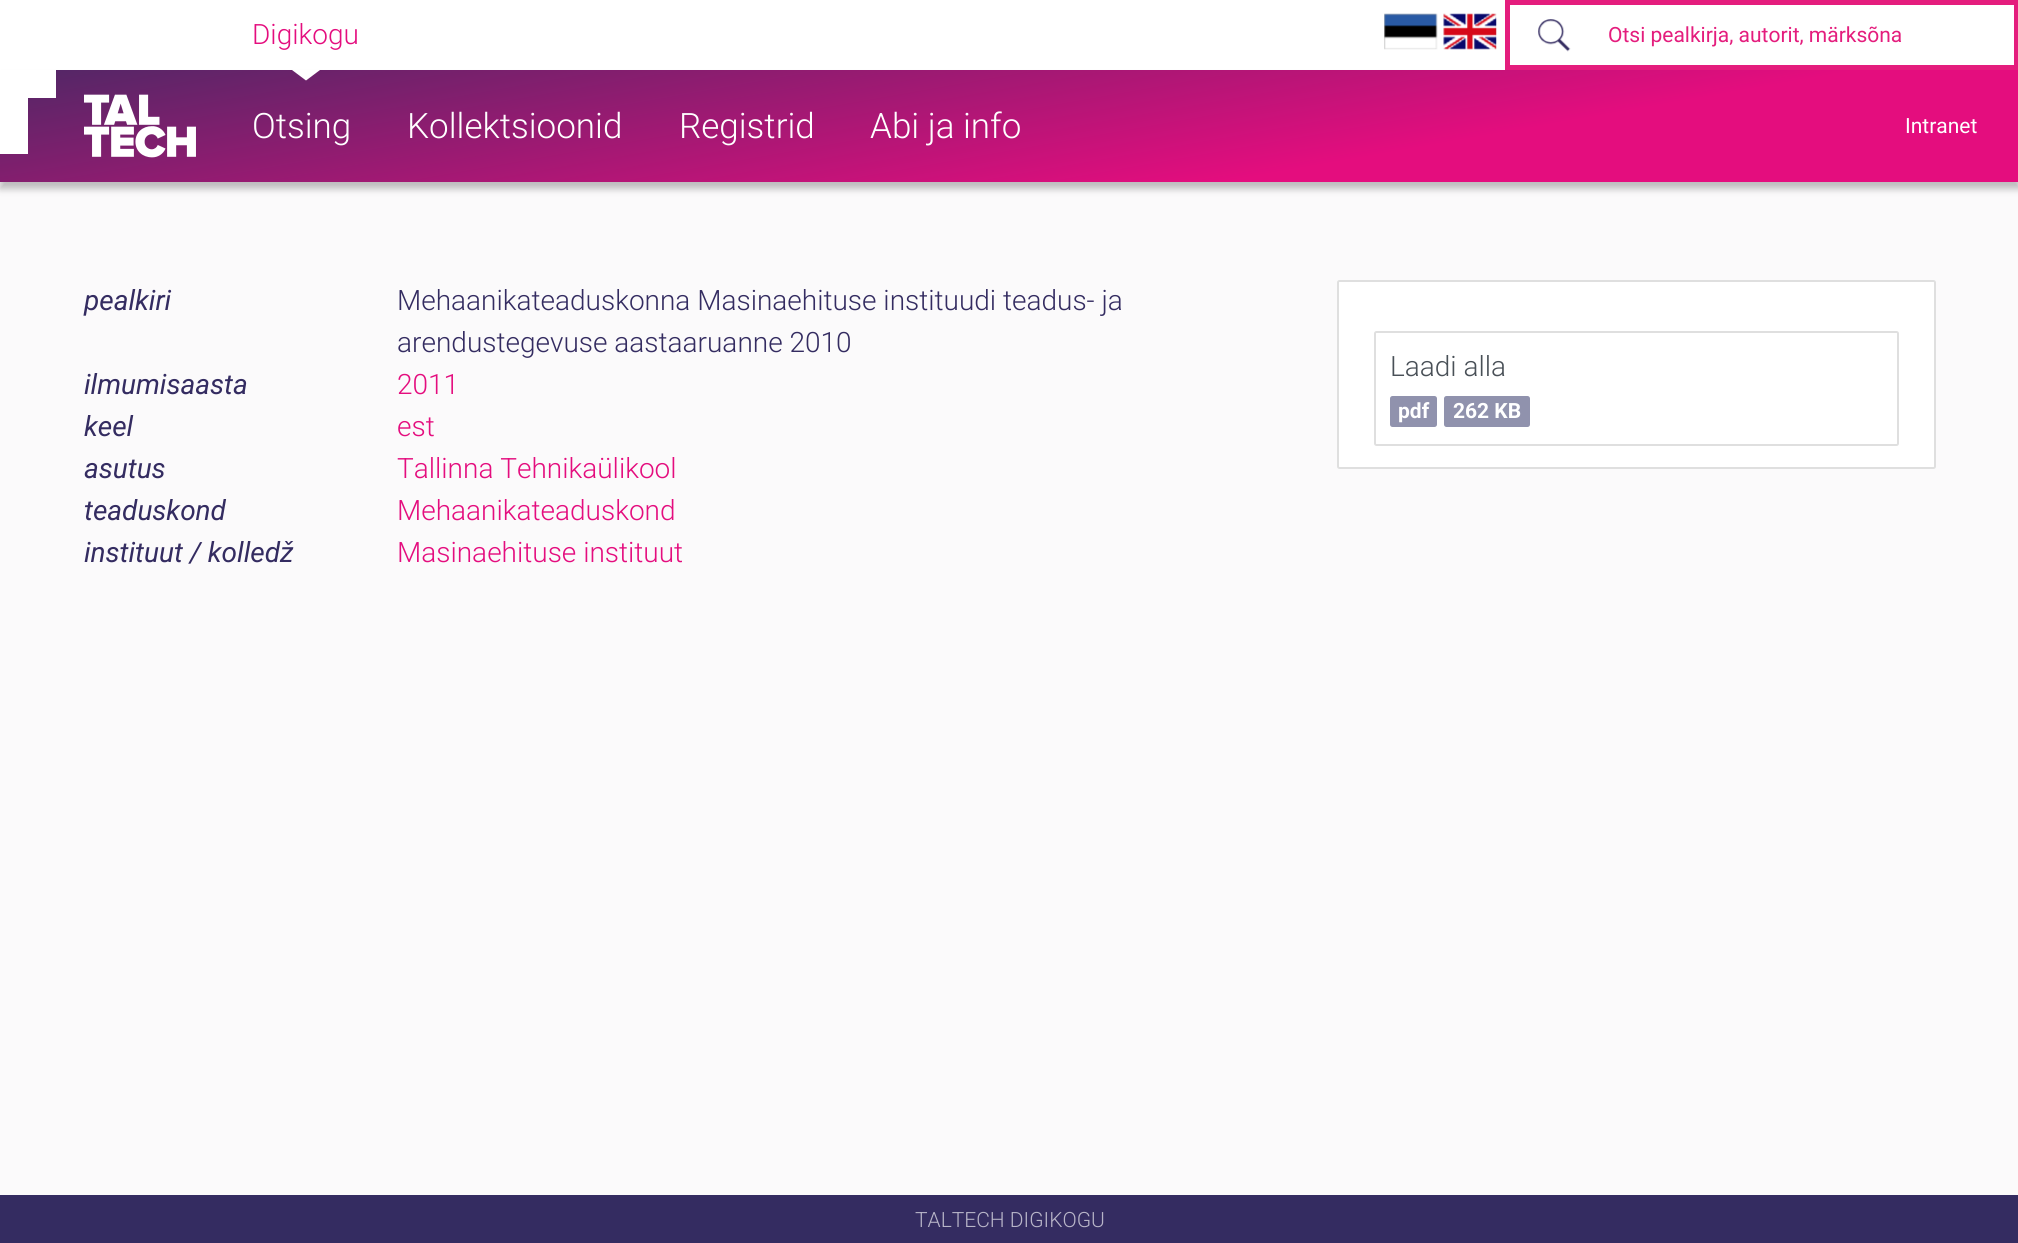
import math
import cairo

surface = cairo.ImageSurface(cairo.Format.RGB24, 2018, 1243)
ctx = cairo.Context(surface)
options = cairo.FontOptions()
options.set_hint_metrics(cairo.HintMetrics.OFF)
options.set_hint_style(cairo.HintStyle.NONE)
ctx.set_font_options(options)
ctx.set_miter_limit(4)


def ink(r, g, b):
    ctx.set_source_rgb(r / 255, g / 255, b / 255)


def write(x, y, s, family, size, color, bold=False, italic=False):
    ctx.select_font_face(family, cairo.FontSlant.ITALIC if italic else cairo.FontSlant.NORMAL, cairo.FontWeight.BOLD if bold else cairo.FontWeight.NORMAL)
    ctx.set_font_size(size)
    ink(*color)
    ctx.move_to(x, y)
    ctx.show_text(s)


def block(x, y, w, h, *color):
    ink(*color)
    ctx.rectangle(x, y, w, h)
    ctx.fill()


def round_path(x, y, w, h, r):
    ctx.new_sub_path()
    for i, (u, v) in enumerate([(x + w - r, y + h - r), (x + r, y + h - r), (x + r, y + r), (x + w - r, y + r)]):
        ctx.arc(u, v, r, i * math.pi / 2, (i + 1) * math.pi / 2)
    ctx.close_path()


def blur_box(x, y, w, h, r, blur, alpha):
    ctx.push_group_with_content(cairo.Content.ALPHA)
    ctx.set_operator(cairo.Operator.SOURCE)
    for i in range(15, -16, -2):
        e = blur * i / 6
        if min(w, h) + 2 * e > 0:
            ctx.set_source_rgba(0, 0, 0, alpha * math.erfc((i - 1) / 8.5) / 2)
            round_path(x - e, y - e, w + 2 * e, h + 2 * e, max(0, min(r + e + blur * .6, min(w, h) / 2 + e)))
            ctx.fill()
    ctx.mask(ctx.pop_group())


def paste(path, x, y, w, h):
    ctx.save()
    ctx.set_source_surface(cairo.ImageSurface.create_from_png(path), x, y)
    ctx.rectangle(x, y, w, h)
    ctx.fill()
    ctx.restore()


s1 = dict(family="Roboto Light", size=28, color=(228, 13, 126))
s2 = dict(family="Roboto", size=21, color=(228, 29, 125))
s3 = dict(family="Roboto Light", size=35, color=(255, 255, 255))
s4 = dict(family="Roboto", size=21, color=(255, 255, 255))
s5 = dict(family="Roboto", size=28, color=(52, 44, 97), italic=True)
s6 = dict(family="Roboto Light", size=28, color=(52, 44, 97))
s7 = dict(family="Roboto Light", size=28, color=(73, 80, 87))
s8 = dict(family="Roboto", size=21, color=(255, 255, 255), bold=True)
s9 = dict(family="Roboto Light", size=21, color=(184, 181, 200))

ink(251, 250, 251)
ctx.paint()
block(0, 0, 1505, 70, 255, 255, 255)
write(252, 44, "Digikogu", **s1)
ink(0, 0, 0)
blur_box(0, 77, 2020, 112, 0, 3.5, 0.25)
gradient = cairo.LinearGradient(970, -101, 1050, 353)
gradient.add_color_stop_rgba(0, 0.318, 0.153, 0.4, 1)
gradient.add_color_stop_rgba(0.7, 0.894, 0.051, 0.494, 1)
ctx.set_source(gradient)
ctx.rectangle(0, 70, 2018, 112)
ctx.fill()
ink(255, 255, 255)
ctx.new_path()
ctx.move_to(292, 70)
ctx.line_to(320, 70)
ctx.line_to(306, 80.5)
ctx.close_path()
ctx.fill()
paste("pic1.png", 1384, 13, 54, 37)
paste("pic2.png", 1443, 13, 54, 37)
block(1505, 0, 513, 70, 228, 29, 125)
block(1510, 5, 504, 60, 255, 255, 255)
paste("pic3.png", 1538, 19, 33, 33)
write(1608, 42, "Otsi pealkirja, autorit, märksõna", **s2)
block(0, 70, 56, 28, 255, 255, 255)
block(0, 98, 28, 56, 255, 255, 255)
paste("pic4.png", 84, 94, 112, 64)
write(252, 138, "Otsing", **s3)
write(407, 138, "Kollektsioonid", **s3)
write(679, 138, "Registrid", **s3)
write(870, 138, "Abi ja info", **s3)
write(1905, 133, "Intranet", **s4)
write(84, 310, "pealkiri", **s5)
write(397, 310, "Mehaanikateaduskonna Masinaehituse instituudi teadus- ja", **s6)
write(397, 352, "arendustegevuse aastaaruanne 2010", **s6)
write(84, 394, "ilmumisaasta", **s5)
write(397, 394, "2011", **s1)
write(84, 436, "keel", **s5)
write(397, 436, "est", **s1)
write(84, 478, "asutus", **s5)
write(397, 478, "Tallinna Tehnikaülikool", **s1)
write(84, 520, "teaduskond", **s5)
write(397, 520, "Mehaanikateaduskond", **s1)
write(84, 562, "instituut / kolledž", **s5)
write(397, 562, "Masinaehituse instituut", **s1)
ink(255, 255, 255)
round_path(1338, 281, 597, 187, 1.5)
ctx.fill_preserve()
ink(223, 223, 223)
ctx.stroke()
round_path(1375, 332, 523, 113, 1.5)
ctx.stroke()
write(1390, 376, "Laadi alla", **s7)
ink(144, 146, 173)
round_path(1390, 396, 47, 31, 2.5)
ctx.fill()
write(1398, 418, "pdf", **s8)
ink(144, 146, 173)
round_path(1444, 396, 86, 31, 2.5)
ctx.fill()
write(1453, 418, "262 KB", **s8)
block(0, 1195, 2018, 48, 52, 44, 97)
write(915, 1227, "TALTECH DIGIKOGU", **s9)
surface.write_to_png("screenshot.png")
